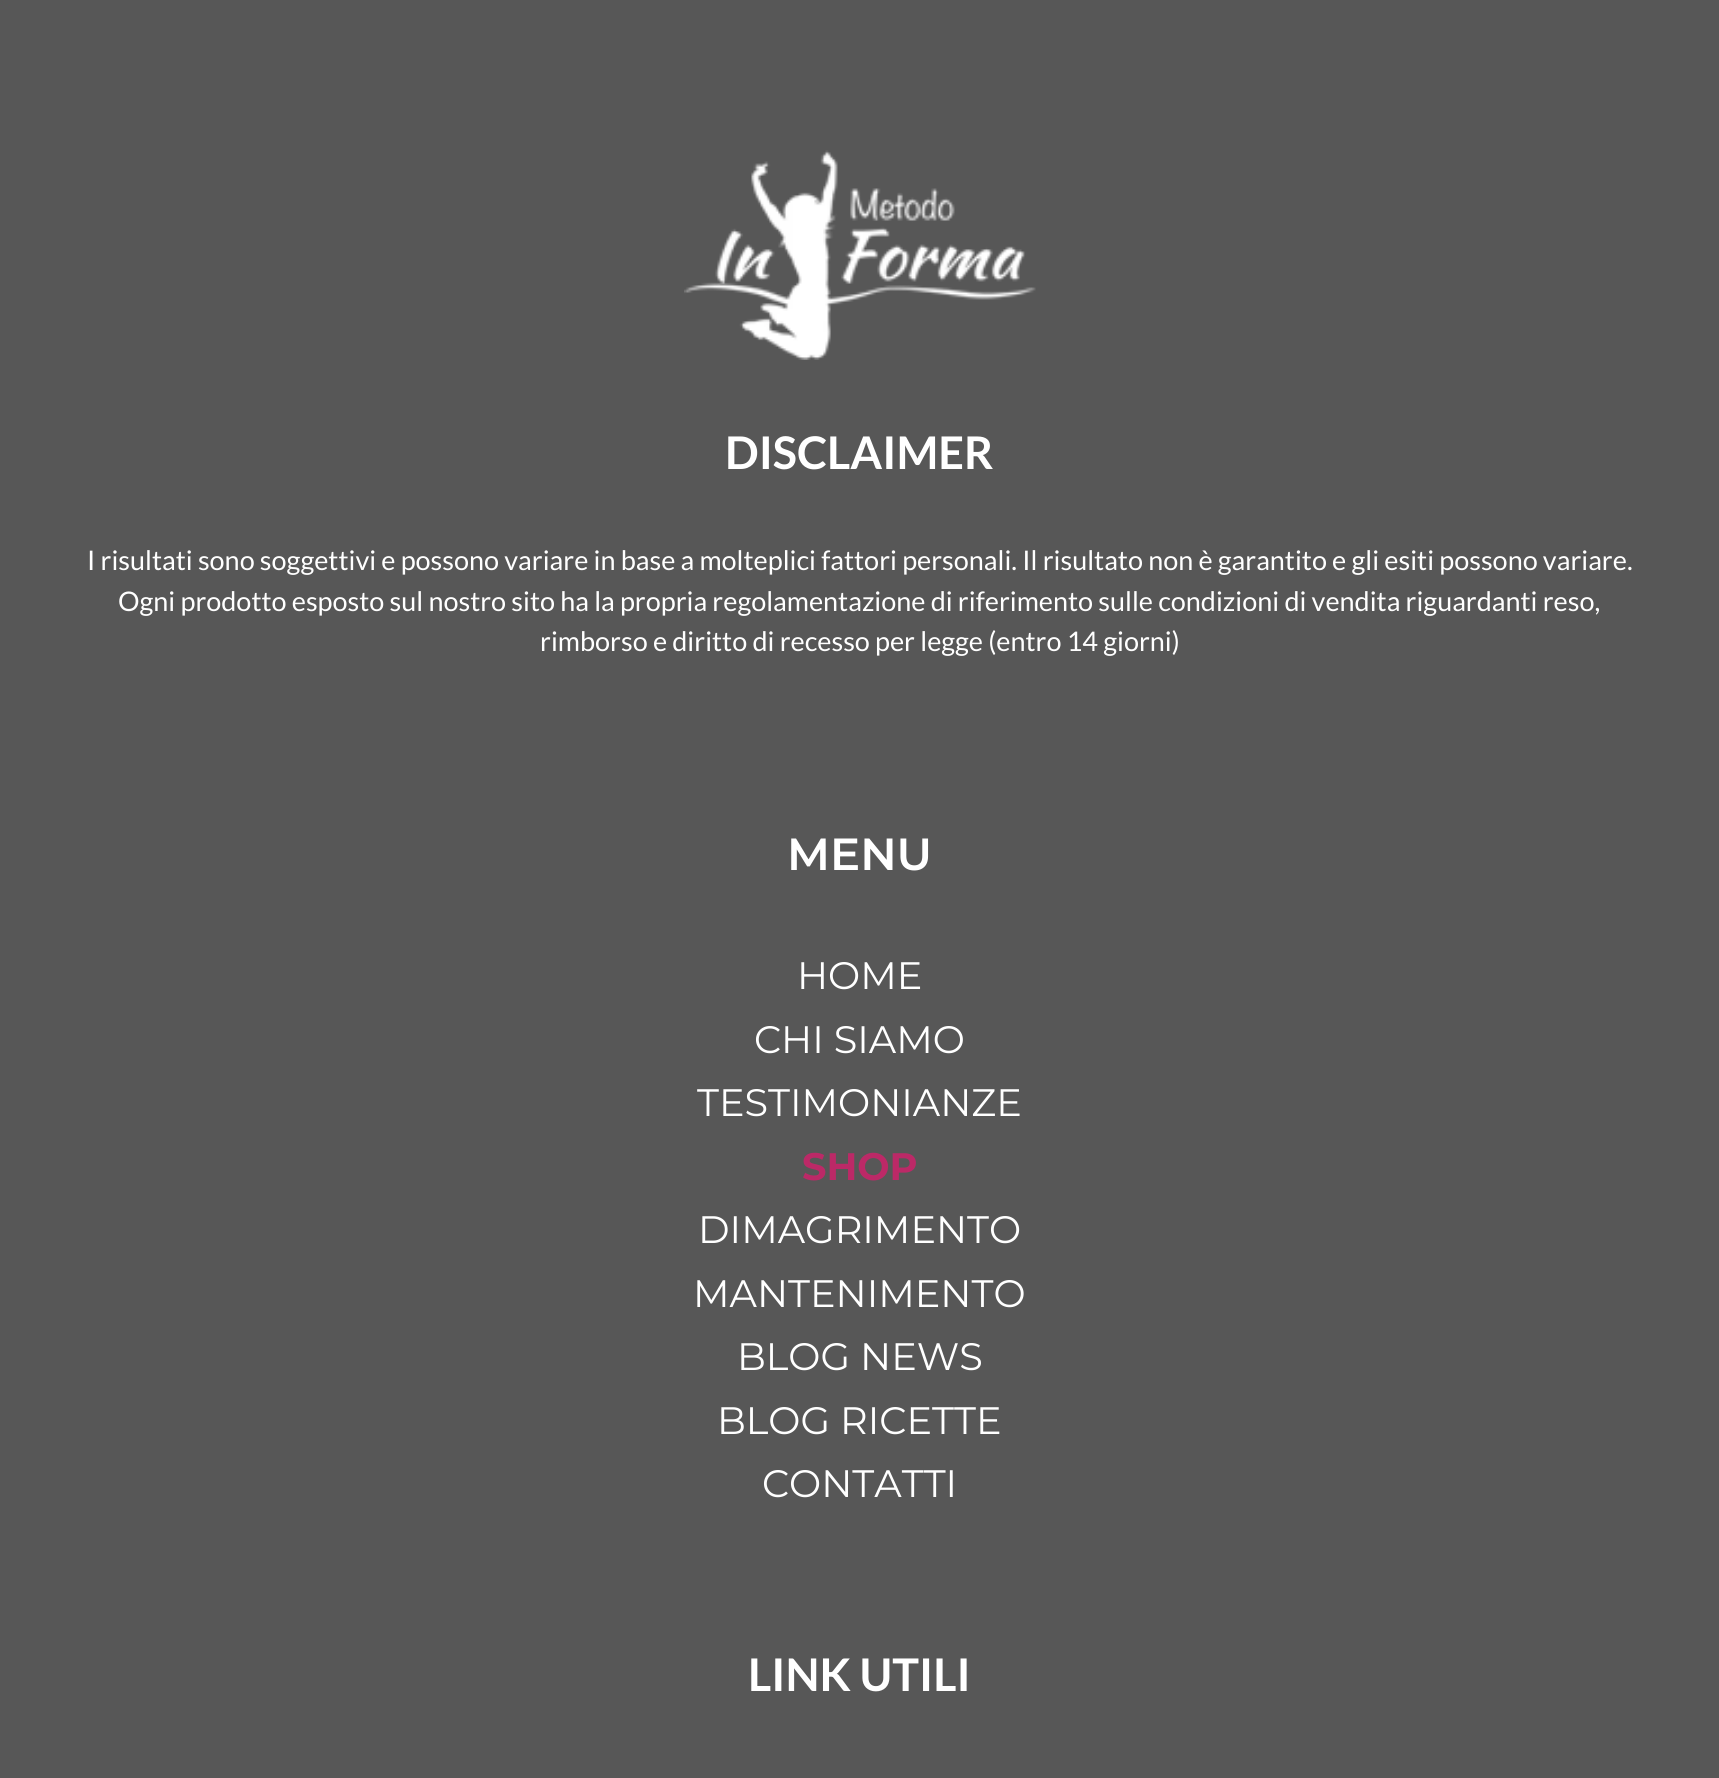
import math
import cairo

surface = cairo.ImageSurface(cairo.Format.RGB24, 1719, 1778)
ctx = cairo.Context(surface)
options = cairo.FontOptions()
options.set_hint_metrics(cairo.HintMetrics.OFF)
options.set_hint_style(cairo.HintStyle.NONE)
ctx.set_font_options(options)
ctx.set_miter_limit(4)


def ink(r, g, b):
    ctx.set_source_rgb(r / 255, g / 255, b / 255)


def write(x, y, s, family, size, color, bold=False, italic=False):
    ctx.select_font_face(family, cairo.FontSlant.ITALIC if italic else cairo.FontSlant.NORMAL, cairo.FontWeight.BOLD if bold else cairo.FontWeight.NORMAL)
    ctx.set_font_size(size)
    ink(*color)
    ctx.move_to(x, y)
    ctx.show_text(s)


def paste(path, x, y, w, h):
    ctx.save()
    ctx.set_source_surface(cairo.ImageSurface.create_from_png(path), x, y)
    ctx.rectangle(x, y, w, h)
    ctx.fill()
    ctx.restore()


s1 = dict(family="Lato", size=45, color=(255, 255, 255), bold=True)
s2 = dict(family="Lato", size=27, color=(255, 255, 255))
s3 = dict(family="Montserrat SemiBold", size=45, color=(255, 255, 255))
s4 = dict(family="Montserrat", size=38.25, color=(255, 255, 255))
s5 = dict(family="Montserrat", size=38.25, color=(188, 41, 103), bold=True)

ink(87, 87, 87)
ctx.paint()
paste("pic1.png", 684, 150, 352, 210)
write(725, 469, "DISCLAIMER", **s1)
write(87, 570, "I risultati sono soggettivi e possono variare in base a molteplici fattori personali. Il risultato non è garantito e gli esiti possono variare.", **s2)
write(118, 611, "Ogni prodotto esposto sul nostro sito ha la propria regolamentazione di riferimento sulle condizioni di vendita riguardanti reso,", **s2)
write(540, 651, "rimborso e diritto di recesso per legge (entro 14 giorni)", **s2)
write(787, 870, "MENU", **s3)
write(797, 989, "HOME", **s4)
write(754, 1053, "CHI SIAMO", **s4)
write(697, 1116, "TESTIMONIANZE", **s4)
write(802, 1180, "SHOP", **s5)
write(698, 1243, "DIMAGRIMENTO", **s4)
write(693, 1307, "MANTENIMENTO", **s4)
write(737, 1370, "BLOG NEWS", **s4)
write(717, 1434, "BLOG RICETTE", **s4)
write(762, 1497, "CONTATTI", **s4)
write(748, 1691, "LINK UTILI", **s1)
surface.write_to_png("screenshot.png")
